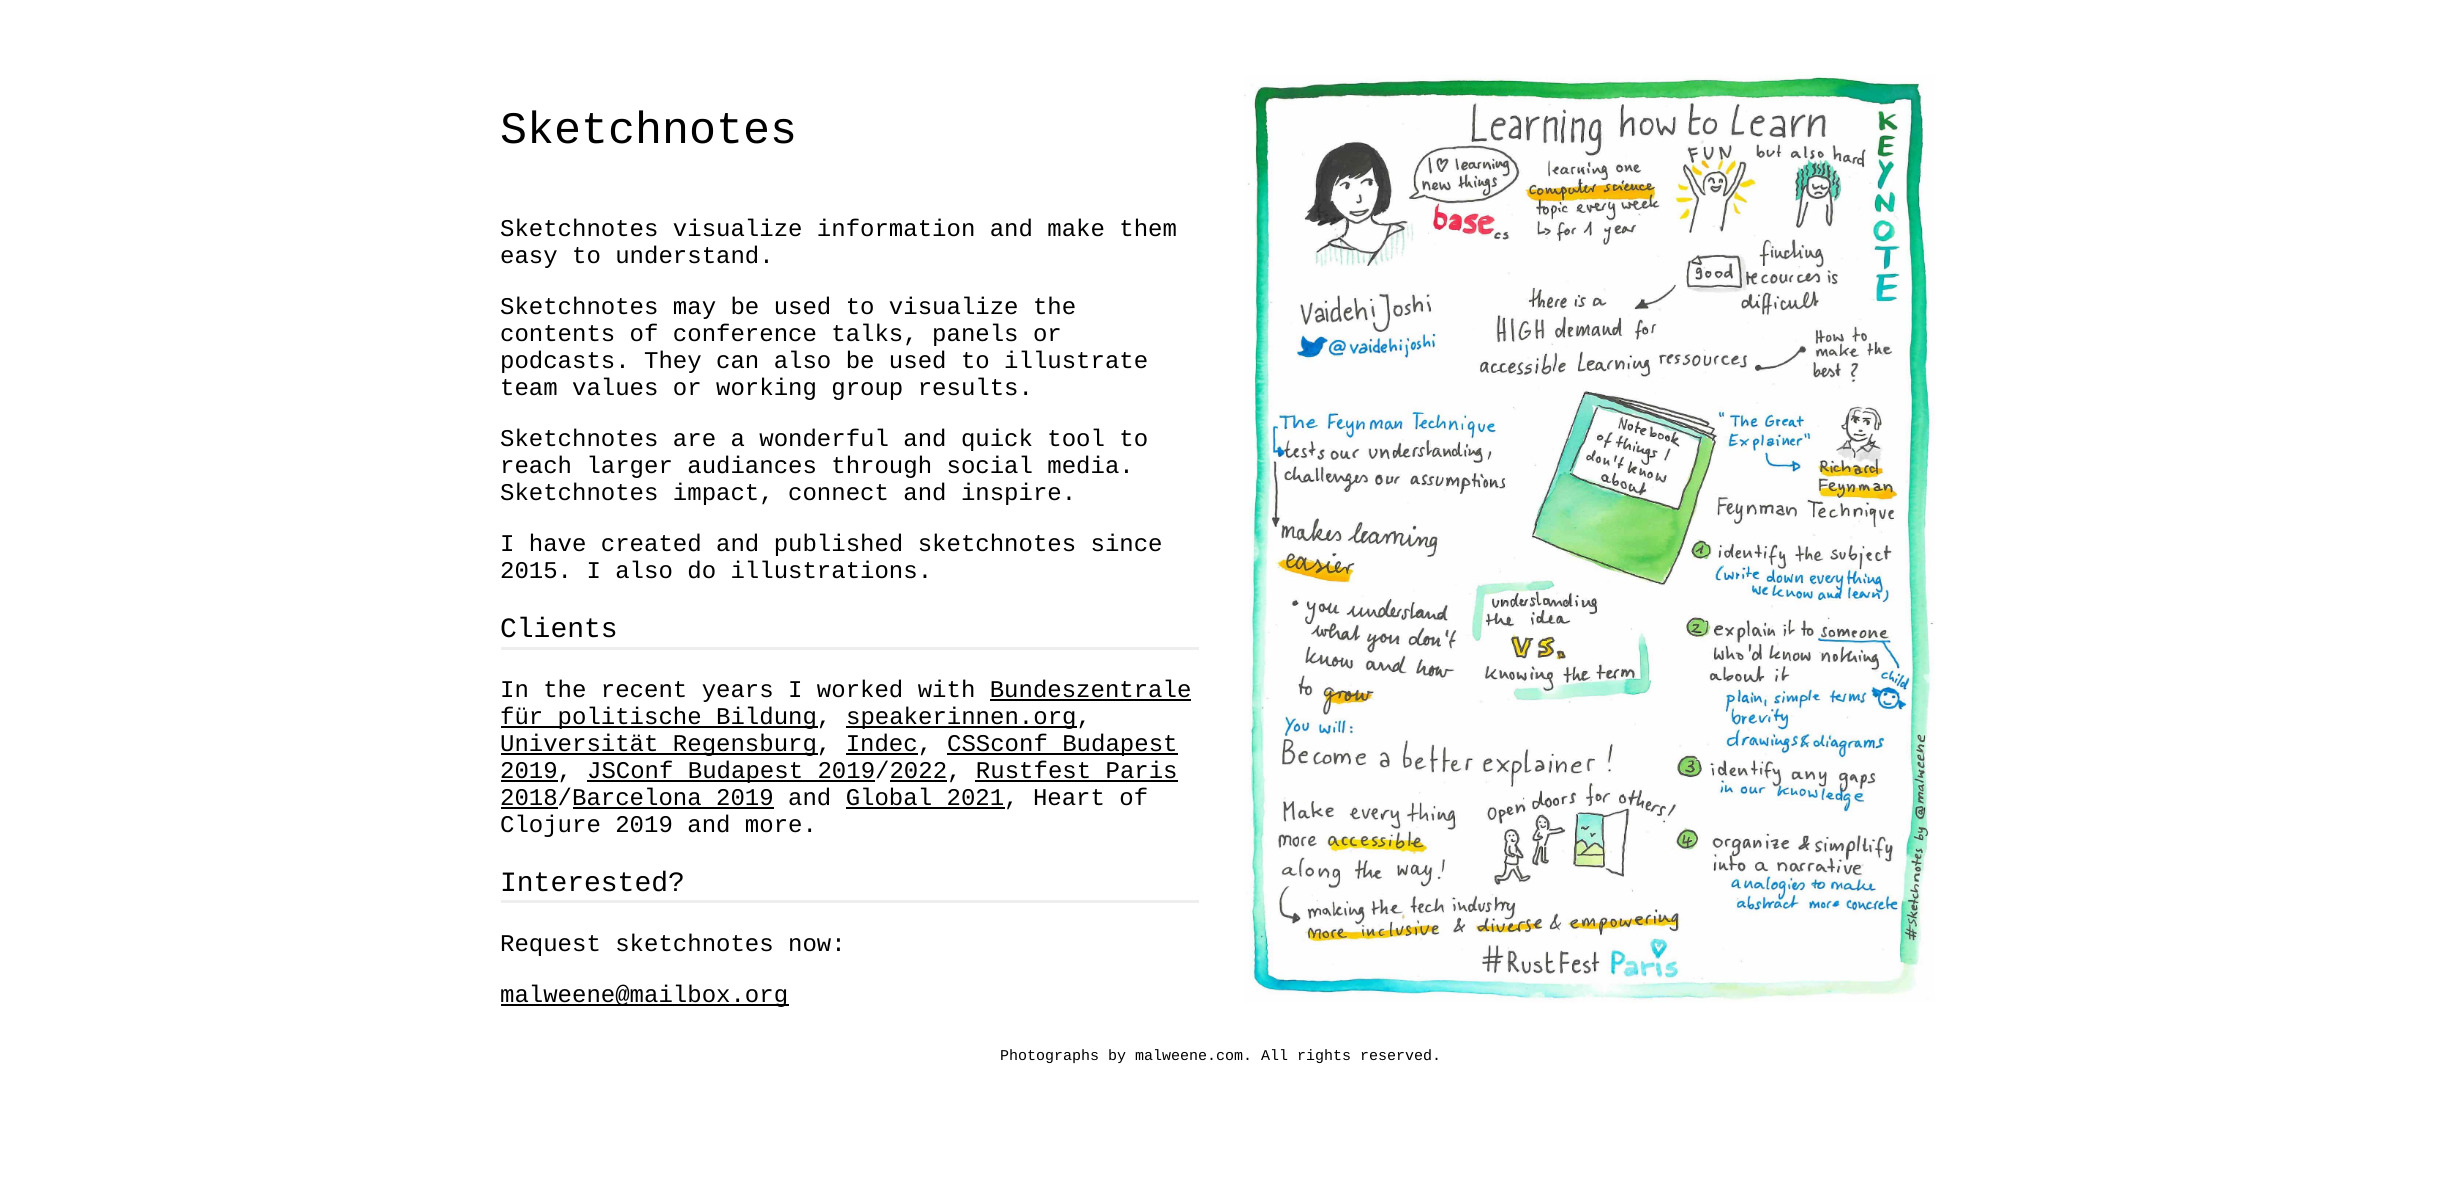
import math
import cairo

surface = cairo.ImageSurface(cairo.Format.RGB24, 2440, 1195)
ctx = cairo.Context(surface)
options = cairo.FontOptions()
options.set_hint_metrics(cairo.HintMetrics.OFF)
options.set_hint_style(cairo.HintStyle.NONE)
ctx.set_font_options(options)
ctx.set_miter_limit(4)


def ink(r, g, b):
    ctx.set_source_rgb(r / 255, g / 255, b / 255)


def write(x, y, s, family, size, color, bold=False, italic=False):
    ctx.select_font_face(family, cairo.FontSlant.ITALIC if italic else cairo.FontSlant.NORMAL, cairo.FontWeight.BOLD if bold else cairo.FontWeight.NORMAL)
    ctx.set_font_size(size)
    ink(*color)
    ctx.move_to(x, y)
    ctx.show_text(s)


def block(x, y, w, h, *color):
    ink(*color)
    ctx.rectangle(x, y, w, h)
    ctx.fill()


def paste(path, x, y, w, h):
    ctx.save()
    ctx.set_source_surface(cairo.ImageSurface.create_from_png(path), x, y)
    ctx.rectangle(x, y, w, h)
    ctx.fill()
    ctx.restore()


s1 = dict(family="Liberation Mono", size=45, color=(0, 0, 0))
s2 = dict(family="Liberation Mono", size=24, color=(0, 0, 0))
s3 = dict(family="Liberation Mono", size=28, color=(0, 0, 0))
s4 = dict(family="Liberation Mono", size=15, color=(0, 0, 0))

ink(255, 255, 255)
ctx.paint()
write(500, 143, "Sketchnotes", **s1)
write(500, 236, "Sketchnotes visualize information and make them", **s2)
write(500, 263, "easy to understand.", **s2)
write(500, 314, "Sketchnotes may be used to visualize the", **s2)
write(500, 341, "contents of conference talks, panels or", **s2)
write(500, 368, "podcasts. They can also be used to illustrate", **s2)
write(500, 395, "team values or working group results.", **s2)
write(500, 446, "Sketchnotes are a wonderful and quick tool to", **s2)
write(500, 473, "reach larger audiances through social media.", **s2)
write(500, 500, "Sketchnotes impact, connect and inspire.", **s2)
write(500, 551, "I have created and published sketchnotes since", **s2)
write(500, 578, "2015. I also do illustrations.", **s2)
block(501, 647, 698, 3, 238, 238, 238)
write(500, 637, "Clients", **s3)
write(500, 697, "In the recent years I worked with Bundeszentrale", **s2)
block(501, 726, 317, 2, 0, 0, 0)
write(500, 724, "für politische Bildung,", **s2)
block(990, 699, 201, 2, 0, 0, 0)
block(846, 726, 231, 2, 0, 0, 0)
write(846, 724, "speakerinnen.org,", **s2)
block(501, 753, 317, 2, 0, 0, 0)
write(500, 751, "Universität Regensburg, Indec,", **s2)
block(947, 753, 231, 2, 0, 0, 0)
write(947, 751, "CSSconf Budapest", **s2)
block(846, 753, 72, 2, 0, 0, 0)
block(501, 780, 57, 2, 0, 0, 0)
write(500, 778, "2019,", **s2)
block(587, 780, 288, 2, 0, 0, 0)
write(587, 778, "JSConf Budapest 2019/2022, Rustfest Paris", **s2)
block(890, 780, 57, 2, 0, 0, 0)
block(501, 807, 57, 2, 0, 0, 0)
write(500, 805, "2018/Barcelona 2019 and Global 2021, Heart of", **s2)
block(975, 780, 203, 2, 0, 0, 0)
block(573, 807, 201, 2, 0, 0, 0)
block(846, 807, 159, 2, 0, 0, 0)
write(500, 832, "Clojure 2019 and more.", **s2)
block(501, 900, 698, 3, 238, 238, 238)
write(500, 891, "Interested?", **s3)
write(500, 951, "Request sketchnotes now:", **s2)
block(501, 1004, 288, 2, 0, 0, 0)
write(500, 1002, "malweene@mailbox.org", **s2)
paste("pic1.png", 1244, 75, 691, 928)
write(1000, 1060, "Photographs by malweene.com. All rights reserved.", **s4)
surface.write_to_png("screenshot.png")
